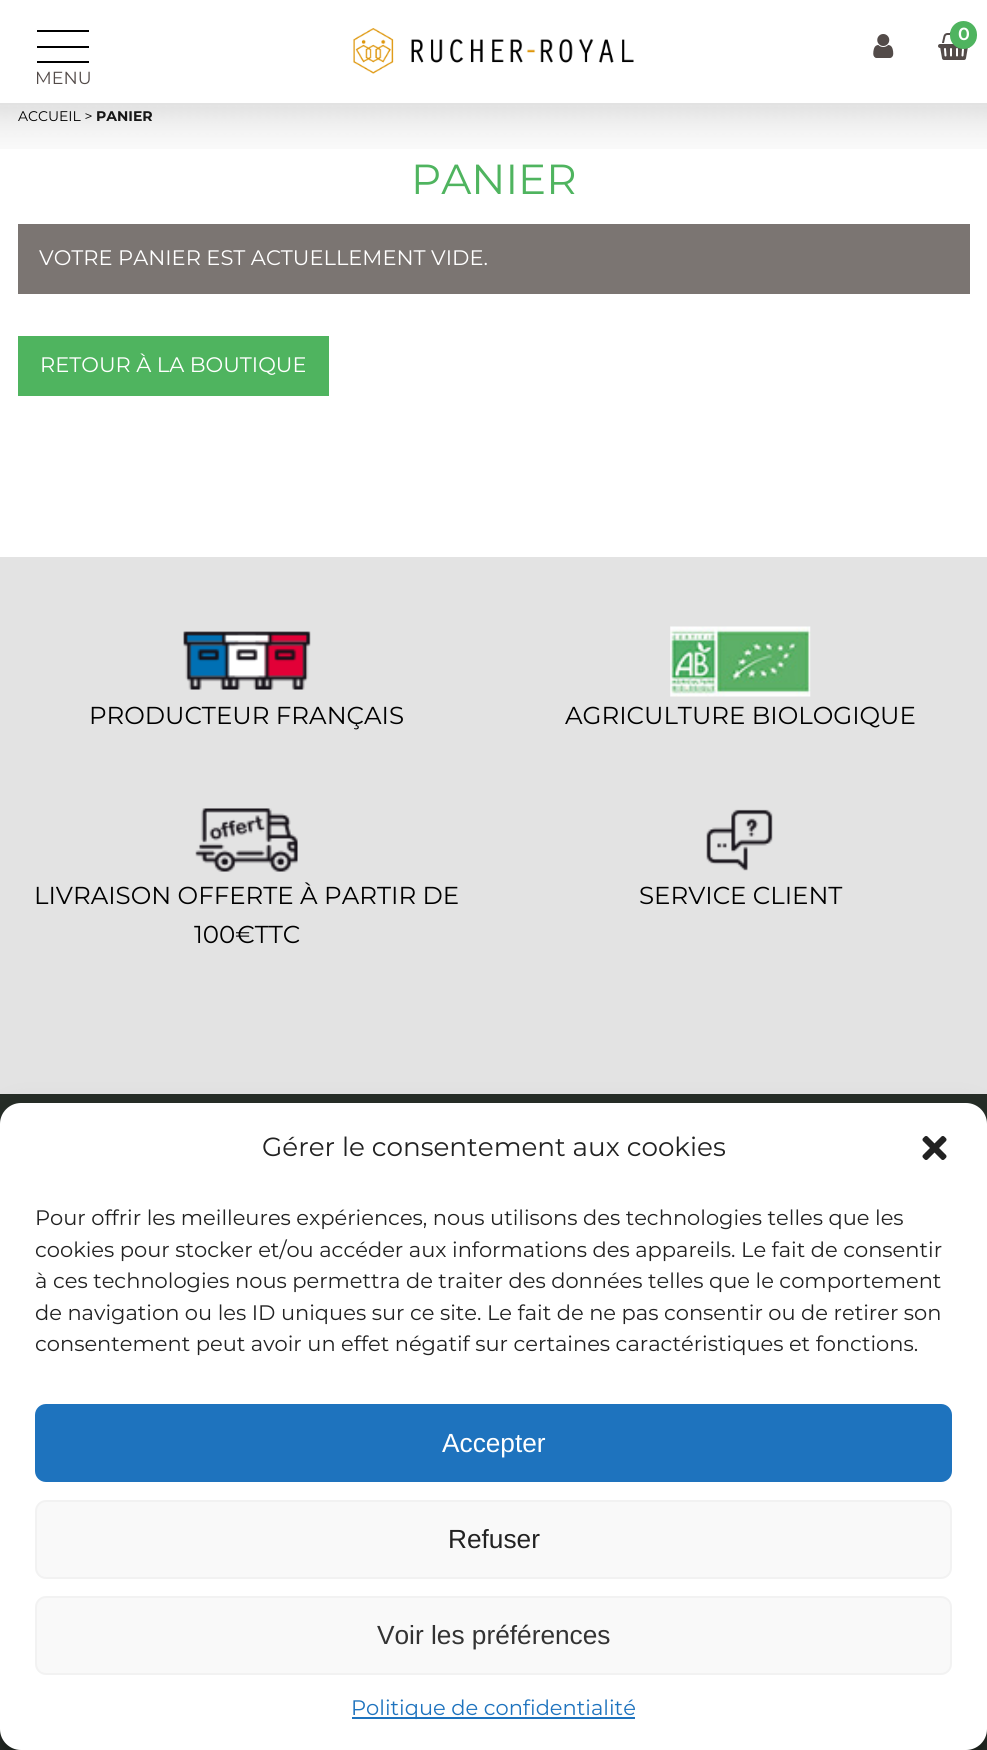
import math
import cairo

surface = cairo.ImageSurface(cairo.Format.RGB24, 987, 1750)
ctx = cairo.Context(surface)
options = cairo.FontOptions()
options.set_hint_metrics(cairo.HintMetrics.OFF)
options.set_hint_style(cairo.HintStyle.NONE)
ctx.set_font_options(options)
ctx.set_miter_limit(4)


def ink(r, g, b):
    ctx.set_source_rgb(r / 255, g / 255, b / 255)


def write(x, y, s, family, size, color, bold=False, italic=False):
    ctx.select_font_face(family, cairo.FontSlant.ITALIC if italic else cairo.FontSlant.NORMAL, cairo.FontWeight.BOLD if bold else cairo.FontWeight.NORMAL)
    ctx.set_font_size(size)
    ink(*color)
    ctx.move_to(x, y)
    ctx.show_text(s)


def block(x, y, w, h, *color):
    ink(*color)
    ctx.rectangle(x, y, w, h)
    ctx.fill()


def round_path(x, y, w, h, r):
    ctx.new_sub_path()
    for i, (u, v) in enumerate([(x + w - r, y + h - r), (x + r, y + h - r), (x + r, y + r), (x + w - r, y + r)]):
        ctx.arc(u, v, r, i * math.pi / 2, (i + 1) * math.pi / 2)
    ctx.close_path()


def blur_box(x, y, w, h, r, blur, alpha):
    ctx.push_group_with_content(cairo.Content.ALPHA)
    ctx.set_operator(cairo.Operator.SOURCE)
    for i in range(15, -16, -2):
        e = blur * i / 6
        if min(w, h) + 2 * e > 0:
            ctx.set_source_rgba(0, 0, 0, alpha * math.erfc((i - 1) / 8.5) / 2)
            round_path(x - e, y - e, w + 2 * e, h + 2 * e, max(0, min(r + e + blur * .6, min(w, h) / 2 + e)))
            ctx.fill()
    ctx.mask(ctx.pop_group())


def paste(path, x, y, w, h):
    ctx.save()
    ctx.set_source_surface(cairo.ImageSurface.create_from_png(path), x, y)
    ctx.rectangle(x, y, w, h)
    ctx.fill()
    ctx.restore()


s1 = dict(family="Montserrat SemiBold", size=17.5, color=(255, 255, 255))
s2 = dict(family="Montserrat", size=17.5, color=(83, 75, 73))
s3 = dict(family="Montserrat", size=14, color=(0, 0, 0))
s4 = dict(family="Montserrat", size=14, color=(23, 23, 23), bold=True)
s5 = dict(family="Montserrat", size=42, color=(79, 180, 95))
s6 = dict(family="Montserrat", size=21, color=(255, 255, 255))
s7 = dict(family="Montserrat", size=24.5, color=(0, 0, 0))
s8 = dict(family="Montserrat", size=26.25, color=(34, 34, 34))
s9 = dict(family="Montserrat", size=21, color=(34, 34, 34))
s10 = dict(family="Liberation Sans", size=26.25, color=(255, 255, 255))
s11 = dict(family="Liberation Sans", size=26.25, color=(34, 34, 34))
s12 = dict(family="Liberation Sans", size=26.25, color=(51, 51, 51))
s13 = dict(family="Montserrat", size=21, color=(30, 115, 190))

ink(255, 255, 255)
ctx.paint()
block(0, 103, 987, 2, 226, 226, 226)
paste("pic1.png", 353, 28, 281, 46)
paste("pic2.png", 873, 34, 21, 24)
paste("pic3.png", 938, 32, 32, 28)
ink(79, 180, 95)
round_path(950, 21, 27, 28, 13.5)
ctx.fill()
write(958, 40, "0", **s1)
block(37, 61, 52, 2, 0, 0, 0)
block(37, 46, 52, 2, 0, 0, 0)
block(37, 30, 52, 2, 0, 0, 0)
write(35, 84, "MENU", **s2)
block(0, 1729, 987, 21, 38, 45, 39)
paste("pic4.png", 0, 105, 987, 44)
write(18, 121, "ACCUEIL >", **s3)
write(96, 121, "PANIER", **s4)
write(411, 194, "PANIER", **s5)
block(18, 224, 952, 70, 123, 117, 114)
write(39, 265, "VOTRE PANIER EST ACTUELLEMENT VIDE.", **s6)
block(18, 336, 311, 60, 79, 180, 95)
write(40, 372, "RETOUR À LA BOUTIQUE", **s6)
block(0, 557, 987, 537, 227, 227, 227)
paste("pic5.png", 183, 631, 128, 59)
write(89, 724, "PRODUCTEUR FRANÇAIS", **s7)
paste("pic6.png", 670, 626, 141, 71)
write(565, 724, "AGRICULTURE BIOLOGIQUE", **s7)
paste("pic7.png", 195, 808, 103, 64)
write(34, 904, "LIVRAISON OFFERTE À PARTIR DE", **s7)
write(194, 943, "100€TTC", **s7)
paste("pic8.png", 706, 809, 67, 62)
write(639, 904, "SERVICE CLIENT", **s7)
block(0, 1094, 987, 30, 38, 45, 39)
ink(0, 0, 0)
blur_box(0, 1113, 987, 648, 21, 5, 0.23)
blur_box(0, 1120, 987, 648, 21, 17.5, 0.19)
ink(255, 255, 255)
round_path(0, 1103, 987, 647, 21)
ctx.fill()
write(262, 1156, "Gérer le consentement aux cookies", **s8)
paste("pic9.png", 922, 1136, 25, 24)
write(35, 1225, "Pour offrir les meilleures expériences, nous utilisons des technologies telles que les", **s9)
write(35, 1257, "cookies pour stocker et/ou accéder aux informations des appareils. Le fait de consentir", **s9)
write(35, 1288, "à ces technologies nous permettra de traiter des données telles que le comportement", **s9)
write(35, 1320, "de navigation ou les ID uniques sur ce site. Le fait de ne pas consentir ou de retirer son", **s9)
write(35, 1351, "consentement peut avoir un effet négatif sur certaines caractéristiques et fonctions.", **s9)
ink(30, 115, 190)
round_path(36, 1405, 915, 76, 10)
ctx.fill_preserve()
ctx.stroke()
write(442, 1452, "Accepter", **s10)
ink(249, 249, 249)
round_path(36, 1501, 915, 77, 10)
ctx.fill_preserve()
ink(242, 242, 242)
ctx.stroke()
write(448, 1548, "Refuser", **s11)
ink(249, 249, 249)
round_path(36, 1597, 915, 77, 10)
ctx.fill_preserve()
ink(242, 242, 242)
ctx.stroke()
write(377, 1644, "Voir les préférences", **s12)
block(352, 1717, 283, 2, 30, 115, 190)
write(351, 1715, "Politique de confidentialité", **s13)
surface.write_to_png("screenshot.png")
